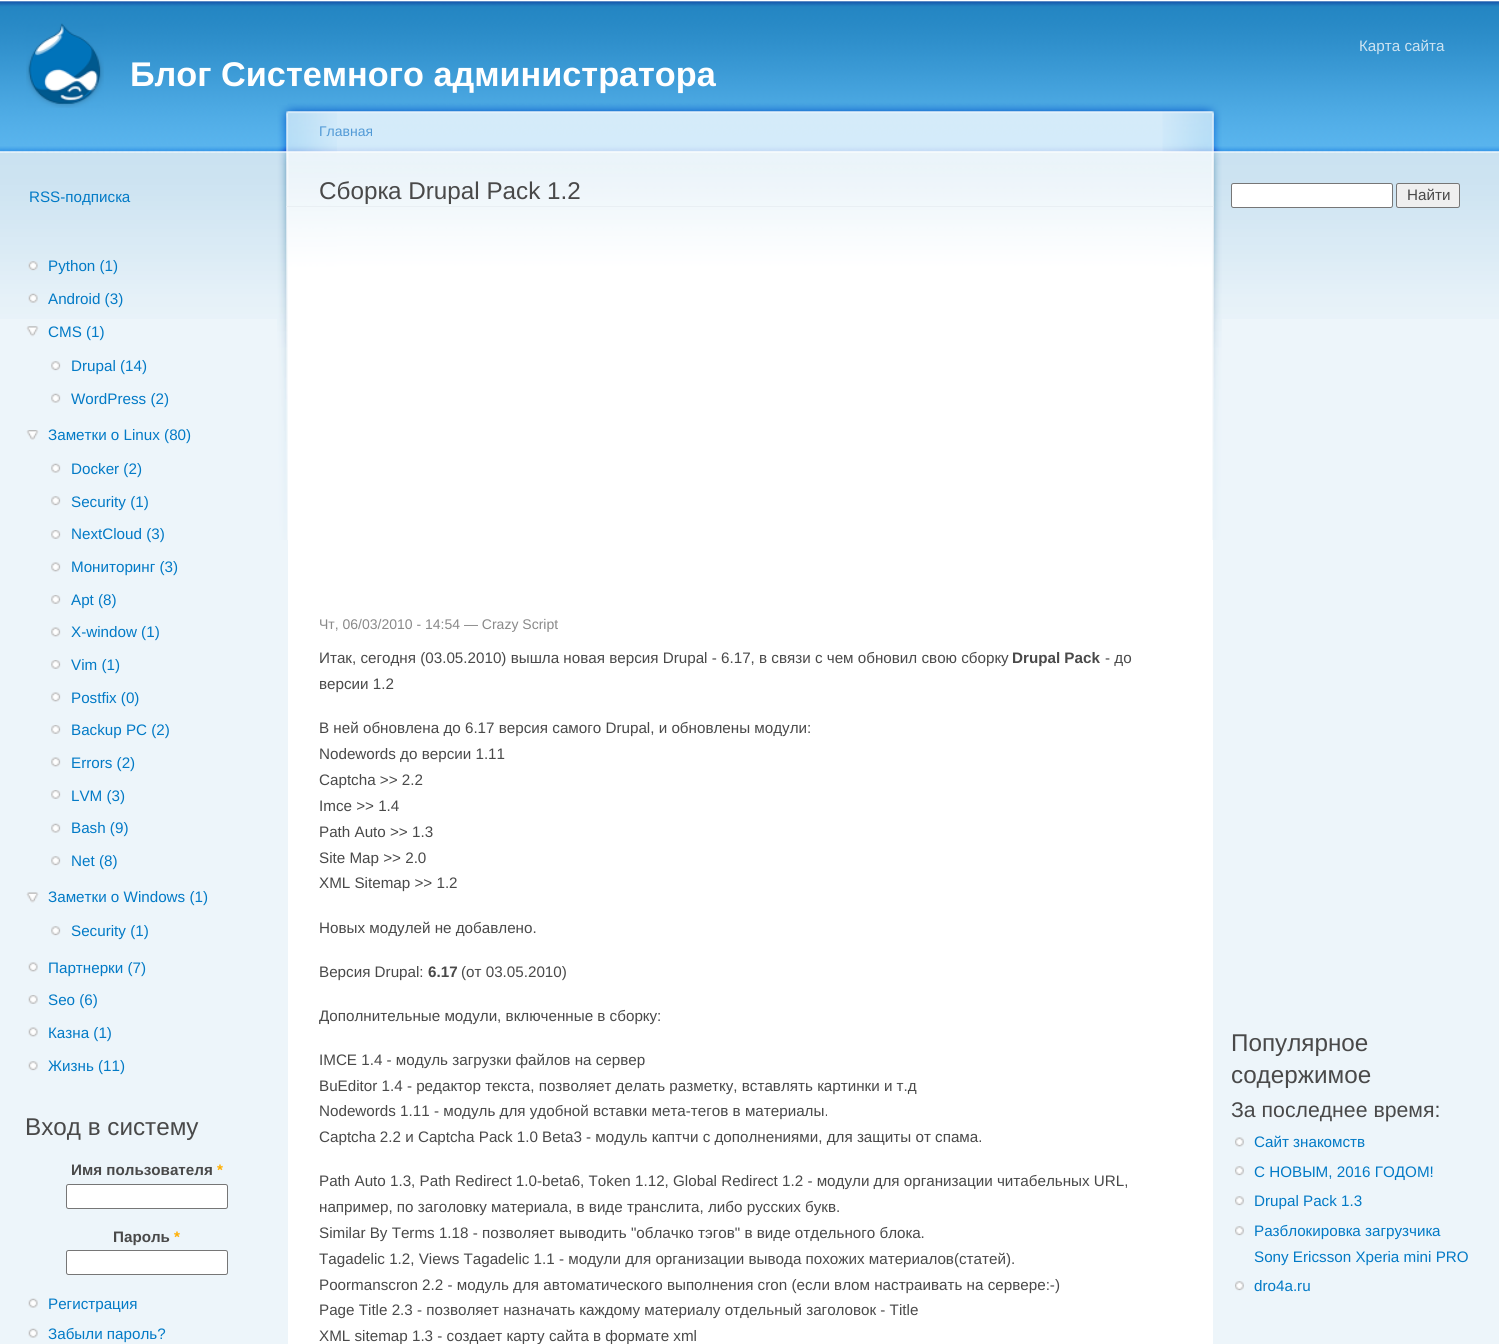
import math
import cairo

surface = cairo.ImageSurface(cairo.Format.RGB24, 1499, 1344)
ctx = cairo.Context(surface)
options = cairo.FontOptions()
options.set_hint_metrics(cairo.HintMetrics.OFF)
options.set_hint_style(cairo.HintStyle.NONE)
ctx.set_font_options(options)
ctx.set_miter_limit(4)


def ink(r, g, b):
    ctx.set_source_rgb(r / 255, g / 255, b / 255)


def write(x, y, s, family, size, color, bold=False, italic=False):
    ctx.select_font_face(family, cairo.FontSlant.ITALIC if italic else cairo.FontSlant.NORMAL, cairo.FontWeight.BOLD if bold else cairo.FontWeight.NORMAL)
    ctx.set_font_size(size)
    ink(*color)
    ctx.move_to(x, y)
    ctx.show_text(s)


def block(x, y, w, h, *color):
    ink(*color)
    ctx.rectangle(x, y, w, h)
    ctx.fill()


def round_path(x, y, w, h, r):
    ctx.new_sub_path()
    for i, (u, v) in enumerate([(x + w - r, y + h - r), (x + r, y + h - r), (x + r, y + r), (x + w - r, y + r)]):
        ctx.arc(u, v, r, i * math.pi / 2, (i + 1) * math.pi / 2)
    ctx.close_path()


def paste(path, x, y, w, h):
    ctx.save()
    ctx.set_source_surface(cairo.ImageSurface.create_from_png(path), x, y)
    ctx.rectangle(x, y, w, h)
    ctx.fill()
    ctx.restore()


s1 = dict(family="Liberation Sans", size=15.2, color=(205, 227, 241))
s2 = dict(family="Liberation Sans", size=34.25, color=(255, 255, 255), bold=True)
s3 = dict(family="Liberation Sans", size=15.2, color=(2, 122, 198))
s4 = dict(family="Liberation Sans", size=24.25, color=(73, 73, 73))
s5 = dict(family="Liberation Sans", size=15.2, color=(73, 73, 73), bold=True)
s6 = dict(family="Liberation Sans", size=15.2, color=(255, 174, 0), bold=True)
s7 = dict(family="Liberation Sans", size=14, color=(82, 154, 214))
s8 = dict(family="Liberation Sans", size=14, color=(137, 137, 137))
s9 = dict(family="Liberation Sans", size=15.2, color=(73, 73, 73))
s10 = dict(family="Liberation Sans", size=21.25, color=(73, 73, 73))

ink(237, 245, 250)
ctx.paint()
paste("pic1.png", 0, 0, 1499, 319)
write(1359, 51, "Карта сайта", **s1)
paste("pic2.png", 26, 23, 78, 85)
write(130, 86, "Блог Системного администратора", **s2)
write(29, 202, "RSS-подписка", **s3)
paste("pic3.png", 28, 261, 10, 10)
write(48, 271, "Python (1)", **s3)
paste("pic4.png", 28, 293, 10, 10)
write(48, 304, "Android (3)", **s3)
paste("pic5.png", 26, 326, 13, 11)
write(48, 337, "CMS (1)", **s3)
paste("pic6.png", 51, 361, 10, 10)
write(71, 371, "Drupal (14)", **s3)
paste("pic7.png", 51, 393, 10, 10)
write(71, 404, "WordPress (2)", **s3)
paste("pic8.png", 26, 430, 13, 10)
write(48, 440, "Заметки о Linux (80)", **s3)
paste("pic7.png", 51, 463, 10, 10)
write(71, 474, "Docker (2)", **s3)
paste("pic6.png", 51, 496, 10, 10)
write(71, 507, "Security (1)", **s3)
paste("pic9.png", 51, 530, 10, 9)
write(71, 539, "NextCloud (3)", **s3)
paste("pic10.png", 51, 562, 10, 10)
write(71, 572, "Мониторинг (3)", **s3)
paste("pic9.png", 51, 595, 10, 9)
write(71, 605, "Apt (8)", **s3)
paste("pic10.png", 51, 627, 10, 10)
write(71, 637, "X-window (1)", **s3)
paste("pic9.png", 51, 660, 10, 9)
write(71, 670, "Vim (1)", **s3)
paste("pic10.png", 51, 692, 10, 10)
write(71, 703, "Postfix (0)", **s3)
paste("pic9.png", 51, 725, 10, 9)
write(71, 735, "Backup PC (2)", **s3)
paste("pic10.png", 51, 757, 10, 10)
write(71, 768, "Errors (2)", **s3)
paste("pic9.png", 51, 790, 10, 9)
write(71, 801, "LVM (3)", **s3)
paste("pic7.png", 51, 823, 10, 10)
write(71, 833, "Bash (9)", **s3)
paste("pic6.png", 51, 856, 10, 10)
write(71, 866, "Net (8)", **s3)
paste("pic11.png", 26, 892, 13, 11)
write(48, 902, "Заметки о Windows (1)", **s3)
paste("pic6.png", 51, 926, 10, 10)
write(71, 936, "Security (1)", **s3)
paste("pic12.png", 28, 962, 10, 10)
write(48, 973, "Партнерки (7)", **s3)
paste("pic13.png", 28, 995, 10, 9)
write(48, 1005, "Seo (6)", **s3)
paste("pic12.png", 28, 1027, 10, 10)
write(48, 1038, "Казна (1)", **s3)
paste("pic14.png", 28, 1061, 10, 10)
write(48, 1071, "Жизнь (11)", **s3)
write(25, 1135, "Вход в систему", **s4)
write(71, 1175, "Имя пользователя", **s5)
write(217, 1175, "*", **s6)
ink(255, 255, 255)
round_path(66.5, 1184.5, 161, 24, 2)
ctx.fill_preserve()
ink(118, 118, 118)
ctx.set_line_width(1)
ctx.stroke()
write(113, 1242, "Пароль", **s5)
write(174, 1242, "*", **s6)
ink(255, 255, 255)
round_path(66.5, 1250.5, 161, 24, 2)
ctx.fill_preserve()
ink(118, 118, 118)
ctx.stroke()
paste("pic15.png", 28, 1298, 10, 10)
write(48, 1309, "Регистрация", **s3)
paste("pic15.png", 28, 1328, 10, 10)
write(48, 1339, "Забыли пароль?", **s3)
block(288, 350, 925, 994, 255, 255, 255)
paste("pic16.png", 287, 100, 876, 250)
paste("pic17.png", 1162, 100, 60, 440)
paste("pic18.png", 277, 105, 60, 435)
write(319, 136, "Главная", **s7)
block(286, 206, 928, 1, 233, 239, 243)
write(319, 199, "Сборка Drupal Pack 1.2", **s4)
write(319, 629, "Чт, 06/03/2010 - 14:54 — Crazy Script", **s8)
write(319, 663, "Итак, сегодня (03.05.2010) вышла новая версия Drupal - 6.17, в связи с чем обновил свою сборку", **s9)
write(1012, 663, "Drupal Pack", **s5)
write(1105, 663, "- до", **s9)
write(319, 689, "версии 1.2", **s9)
write(319, 733, "В ней обновлена до 6.17 версия самого Drupal, и обновлены модули:", **s9)
write(319, 759, "Nodewords до версии 1.11", **s9)
write(319, 785, "Captcha >> 2.2", **s9)
write(319, 811, "Imce >> 1.4", **s9)
write(319, 837, "Path Auto >> 1.3", **s9)
write(319, 863, "Site Map >> 2.0", **s9)
write(319, 888, "XML Sitemap >> 1.2", **s9)
write(319, 933, "Новых модулей не добавлено.", **s9)
write(319, 977, "Версия Drupal:", **s9)
write(428, 977, "6.17", **s5)
write(461, 977, "(от 03.05.2010)", **s9)
write(319, 1021, "Дополнительные модули, включенные в сборку:", **s9)
write(319, 1065, "IMCE 1.4 - модуль загрузки файлов на сервер", **s9)
write(319, 1091, "BuEditor 1.4 - редактор текста, позволяет делать разметку, вставлять картинки и т.д", **s9)
write(319, 1116, "Nodewords 1.11 - модуль для удобной вставки мета-тегов в материалы.", **s9)
write(319, 1142, "Captcha 2.2 и Captcha Pack 1.0 Beta3 - модуль каптчи с дополнениями, для защиты от спама.", **s9)
write(319, 1186, "Path Auto 1.3, Path Redirect 1.0-beta6, Token 1.12, Global Redirect 1.2 - модули для организации читабельных URL,", **s9)
write(319, 1212, "например, по заголовку материала, в виде транслита, либо русских букв.", **s9)
write(319, 1238, "Similar By Terms 1.18 - позволяет выводить \"облачко тэгов\" в виде отдельного блока.", **s9)
write(319, 1264, "Tagadelic 1.2, Views Tagadelic 1.1 - модули для организации вывода похожих материалов(статей).", **s9)
write(319, 1290, "Poormanscron 2.2 - модуль для автоматического выполнения cron (если влом настраивать на сервере:-)", **s9)
write(319, 1315, "Page Title 2.3 - позволяет назначать каждому материалу отдельный заголовок - Title", **s9)
write(319, 1341, "XML sitemap 1.3 - создает карту сайта в формате xml", **s9)
ink(255, 255, 255)
round_path(1231.5, 183.5, 161, 24, 2)
ctx.fill_preserve()
ink(118, 118, 118)
ctx.stroke()
ink(239, 239, 239)
round_path(1396.5, 183.5, 63, 24, 2)
ctx.fill_preserve()
ink(118, 118, 118)
ctx.stroke()
write(1407, 200, "Найти", **s9)
write(1231, 1051, "Популярное", **s4)
write(1231, 1083, "содержимое", **s4)
write(1231, 1117, "За последнее время:", **s10)
paste("pic19.png", 1235, 1137, 9, 10)
write(1254, 1147, "Сайт знакомств", **s3)
paste("pic20.png", 1235, 1166, 9, 10)
write(1254, 1177, "С НОВЫМ, 2016 ГОДОМ!", **s3)
paste("pic20.png", 1235, 1196, 9, 10)
write(1254, 1206, "Drupal Pack 1.3", **s3)
paste("pic20.png", 1235, 1226, 9, 10)
write(1254, 1236, "Разблокировка загрузчика", **s3)
write(1254, 1262, "Sony Ericsson Xperia mini PRO", **s3)
paste("pic20.png", 1235, 1281, 9, 10)
write(1254, 1291, "dro4a.ru", **s3)
surface.write_to_png("screenshot.png")
